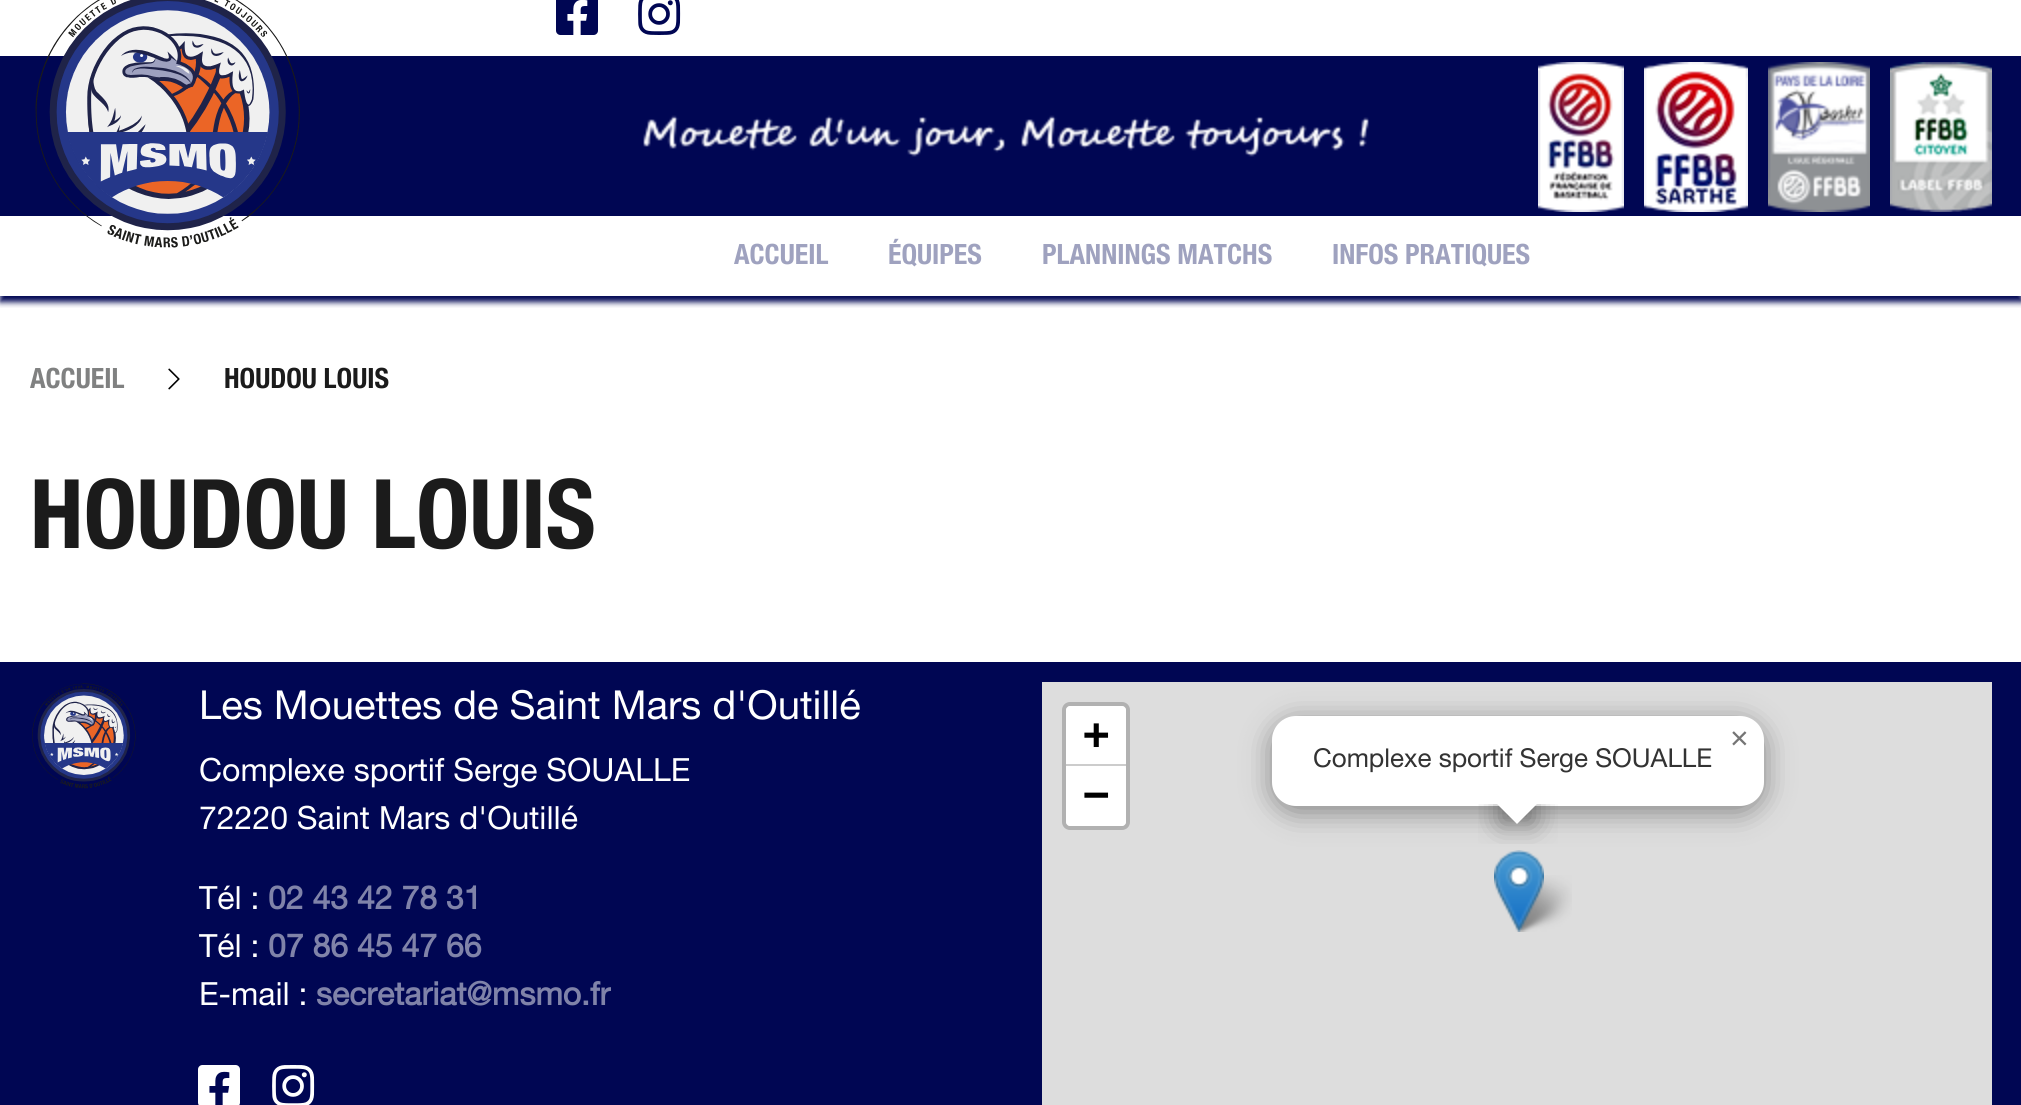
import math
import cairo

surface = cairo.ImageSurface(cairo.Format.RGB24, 2021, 1105)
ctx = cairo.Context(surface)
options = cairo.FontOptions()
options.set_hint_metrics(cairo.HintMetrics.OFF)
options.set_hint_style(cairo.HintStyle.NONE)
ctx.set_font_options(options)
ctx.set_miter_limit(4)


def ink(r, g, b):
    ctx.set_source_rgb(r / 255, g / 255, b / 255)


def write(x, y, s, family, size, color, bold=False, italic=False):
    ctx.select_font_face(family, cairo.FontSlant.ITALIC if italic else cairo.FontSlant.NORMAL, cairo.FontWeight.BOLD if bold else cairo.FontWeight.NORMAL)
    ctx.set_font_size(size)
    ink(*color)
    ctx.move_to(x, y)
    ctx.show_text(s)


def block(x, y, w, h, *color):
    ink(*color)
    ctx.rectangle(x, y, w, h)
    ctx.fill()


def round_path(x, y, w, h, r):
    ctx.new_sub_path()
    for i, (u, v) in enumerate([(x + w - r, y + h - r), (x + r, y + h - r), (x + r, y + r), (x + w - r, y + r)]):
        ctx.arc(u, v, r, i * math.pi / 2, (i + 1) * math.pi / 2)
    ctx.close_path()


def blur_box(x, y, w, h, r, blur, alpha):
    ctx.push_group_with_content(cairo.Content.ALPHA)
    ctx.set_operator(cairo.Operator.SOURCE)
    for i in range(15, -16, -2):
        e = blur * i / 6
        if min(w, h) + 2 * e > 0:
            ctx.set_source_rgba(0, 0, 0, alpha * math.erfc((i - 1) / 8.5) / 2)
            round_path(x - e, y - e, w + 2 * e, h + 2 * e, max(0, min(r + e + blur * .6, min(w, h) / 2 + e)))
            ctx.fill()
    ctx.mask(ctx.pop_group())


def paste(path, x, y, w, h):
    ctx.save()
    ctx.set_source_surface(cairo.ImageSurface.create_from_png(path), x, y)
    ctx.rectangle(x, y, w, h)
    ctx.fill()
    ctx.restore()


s1 = dict(family="Helvetica Neue", size=28, color=(159, 162, 191), bold=True)
s2 = dict(family="Helvetica Neue", size=28, color=(128, 129, 129), bold=True)
s3 = dict(family="Helvetica Neue", size=28, color=(27, 27, 27), bold=True)
s4 = dict(family="Helvetica Neue", size=96, color=(27, 27, 27), bold=True)
s5 = dict(family="Helvetica Neue", size=40, color=(255, 255, 255))
s6 = dict(family="Helvetica Neue", size=32, color=(255, 255, 255))
s7 = dict(family="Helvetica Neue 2", size=32, color=(128, 131, 169), bold=True)
s8 = dict(family="DejaVu Sans Mono", size=44, color=(0, 0, 0), bold=True)
s9 = dict(family="Liberation Sans", size=32, color=(117, 117, 117))
s10 = dict(family="Helvetica Neue", size=26, color=(51, 51, 51))

ink(255, 255, 255)
ctx.paint()
paste("pic1.png", 556, 0, 42, 35)
paste("pic2.png", 638, 0, 43, 35)
block(0, 56, 2021, 160, 0, 6, 83)
paste("pic3.png", 643, 115, 726, 42)
paste("pic4.png", 1538, 62, 86, 150)
paste("pic5.png", 1644, 62, 104, 150)
paste("pic6.png", 1768, 62, 102, 150)
paste("pic7.png", 1890, 62, 102, 150)
ctx.save()
ctx.rectangle(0, 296, 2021, 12)
ctx.clip()
ink(0, 6, 83)
blur_box(0, 222, 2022, 80, 0, 3, 1)
ctx.restore()
paste("pic8.png", 35, 0, 265, 248)
write(734, 264, "ACCUEIL", **s1)
write(888, 264, "ÉQUIPES", **s1)
write(1042, 264, "PLANNINGS MATCHS", **s1)
write(1332, 264, "INFOS PRATIQUES", **s1)
write(30, 388, "ACCUEIL", **s2)
paste("pic9.png", 168, 368, 12, 22)
write(224, 388, "HOUDOU LOUIS", **s3)
write(30, 548, "HOUDOU LOUIS", **s4)
block(0, 662, 2021, 443, 0, 6, 83)
paste("pic10.png", 32, 683, 104, 106)
write(199, 719, "Les Mouettes de Saint Mars d'Outillé", **s5)
write(199, 781, "Complexe sportif Serge SOUALLE", **s6)
write(199, 829, "72220 Saint Mars d'Outillé", **s6)
write(199, 909, "Tél :", **s6)
write(268, 909, "02 43 42 78 31", **s7)
write(199, 957, "Tél :", **s6)
write(268, 957, "07 86 45 47 66", **s7)
write(199, 1005, "E-mail :", **s6)
write(316, 1005, "secretariat@msmo.fr", **s7)
paste("pic11.png", 198, 1065, 42, 40)
paste("pic12.png", 272, 1065, 43, 40)
block(1042, 682, 950, 423, 221, 221, 221)
round_path(1064, 704, 64, 124, 6)
ink(177, 177, 177)
ctx.set_line_width(4)
ctx.stroke()
ink(255, 255, 255)
ctx.new_path()
ctx.move_to(1070, 706)
ctx.line_to(1122, 706)
ctx.curve_to(1124, 706, 1126, 708, 1126, 710)
ctx.line_to(1126, 766)
ctx.line_to(1066, 766)
ctx.line_to(1066, 710)
ctx.curve_to(1066, 708, 1068, 706, 1070, 706)
ctx.close_path()
ctx.fill()
block(1066, 764, 60, 2, 204, 204, 204)
write(1083, 749, "+", **s8)
ink(255, 255, 255)
ctx.new_path()
ctx.move_to(1066, 766)
ctx.line_to(1126, 766)
ctx.line_to(1126, 822)
ctx.curve_to(1126, 824, 1124, 826, 1122, 826)
ctx.line_to(1070, 826)
ctx.curve_to(1068, 826, 1066, 824, 1066, 822)
ctx.close_path()
ctx.fill()
write(1083, 809, "−", **s8)
paste("pic14.png", 1512, 875, 60, 57)
paste("pic13.png", 1494, 850, 50, 82)
ink(0, 0, 0)
blur_box(1272, 722, 492, 90, 24, 14, 0.4)
ink(255, 255, 255)
round_path(1272, 716, 492, 90, 24)
ctx.fill()
write(1730, 749, "×", **s9)
ctx.save()
ctx.rectangle(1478, 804, 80, 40)
ctx.clip()
ink(0, 0, 0)
blur_box(1500, 790, 34, 34, 0, 14, 0.4)
ctx.restore()
ctx.save()
ctx.rectangle(1478, 804, 80, 40)
ctx.clip()
ink(255, 255, 255)
ctx.new_path()
ctx.move_to(1517, 776)
ctx.line_to(1541, 800)
ctx.line_to(1517, 824)
ctx.line_to(1493, 800)
ctx.close_path()
ctx.fill()
ctx.restore()
write(1313, 767, "Complexe sportif Serge SOUALLE", **s10)
surface.write_to_png("screenshot.png")
